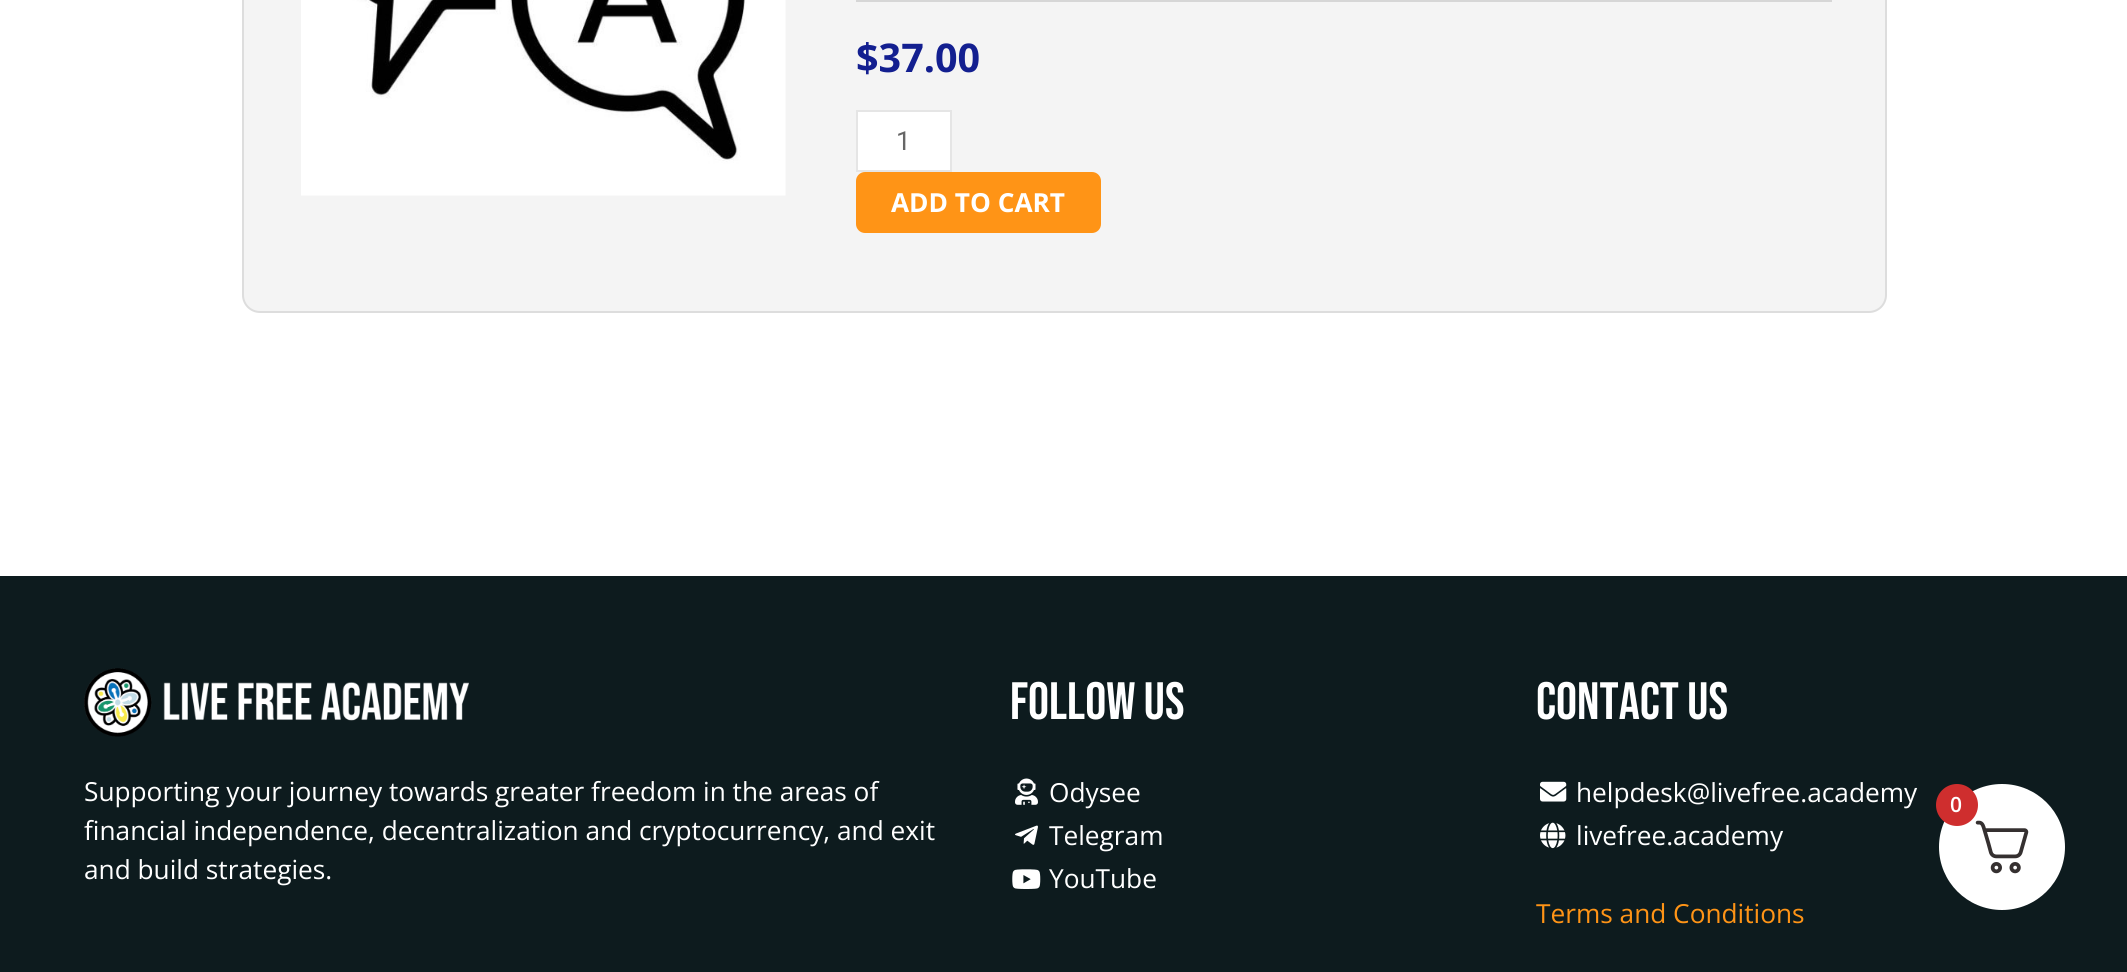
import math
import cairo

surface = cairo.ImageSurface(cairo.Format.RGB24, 2127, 972)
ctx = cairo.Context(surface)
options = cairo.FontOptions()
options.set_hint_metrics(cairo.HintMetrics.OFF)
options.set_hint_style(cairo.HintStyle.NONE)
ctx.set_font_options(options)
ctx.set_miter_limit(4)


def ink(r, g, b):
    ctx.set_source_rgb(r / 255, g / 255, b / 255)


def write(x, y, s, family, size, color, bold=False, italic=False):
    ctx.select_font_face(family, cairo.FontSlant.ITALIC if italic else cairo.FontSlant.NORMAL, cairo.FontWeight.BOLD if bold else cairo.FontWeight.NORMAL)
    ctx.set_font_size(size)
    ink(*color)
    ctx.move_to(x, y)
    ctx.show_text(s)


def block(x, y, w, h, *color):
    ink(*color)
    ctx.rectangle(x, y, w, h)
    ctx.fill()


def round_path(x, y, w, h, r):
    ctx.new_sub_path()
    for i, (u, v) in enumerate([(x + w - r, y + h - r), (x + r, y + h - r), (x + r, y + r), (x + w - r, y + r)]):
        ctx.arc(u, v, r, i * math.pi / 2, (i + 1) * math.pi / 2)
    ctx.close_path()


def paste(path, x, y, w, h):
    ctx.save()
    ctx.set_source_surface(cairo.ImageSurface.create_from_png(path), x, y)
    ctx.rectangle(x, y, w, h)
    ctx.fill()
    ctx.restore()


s1 = dict(family="Open Sans", size=39.5, color=(19, 31, 144), bold=True)
s2 = dict(family="Roboto", size=26.25, color=(102, 102, 102))
s3 = dict(family="Open Sans", size=26.25, color=(255, 255, 255), bold=True)
s4 = dict(family="Open Sans", size=26.25, color=(255, 255, 255))
s5 = dict(family="Bebas Neue", size=52.5, color=(255, 255, 255))
s6 = dict(family="Open Sans", size=26.25, color=(255, 148, 22))
s7 = dict(family="Open Sans SemiBold", size=21, color=(255, 255, 255))

ink(255, 255, 255)
ctx.paint()
ink(244, 244, 244)
round_path(243, -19, 1643, 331, 17)
ctx.fill_preserve()
ink(221, 221, 221)
ctx.stroke()
paste("pic1.png", 301, 0, 485, 196)
block(856, 0, 976, 2, 214, 214, 214)
write(856, 72, "$37.00", **s1)
ink(255, 255, 255)
ctx.rectangle(857, 111, 94, 60)
ctx.fill_preserve()
ink(229, 229, 229)
ctx.stroke()
write(896, 150, "1", **s2)
ink(255, 148, 22)
round_path(856, 172, 245, 61, 9)
ctx.fill()
write(891, 212, "ADD TO CART", **s3)
block(0, 576, 2127, 396, 13, 27, 30)
paste("pic2.png", 84, 668, 385, 69)
write(84, 801, "Supporting your journey towards greater freedom in the areas of", **s4)
write(84, 840, "financial independence, decentralization and cryptocurrency, and exit", **s4)
write(84, 879, "and build strategies.", **s4)
write(1010, 719, "Follow Us", **s5)
paste("pic3.png", 1015, 778, 23, 27)
write(1049, 802, "Odysee", **s4)
paste("pic4.png", 1015, 825, 23, 20)
write(1049, 845, "Telegram", **s4)
paste("pic5.png", 1012, 869, 29, 20)
write(1049, 888, "YouTube", **s4)
write(1536, 719, "Contact Us", **s5)
paste("pic6.png", 1540, 781, 27, 21)
write(1576, 802, "helpdesk@livefree.academy", **s4)
paste("pic7.png", 1540, 822, 26, 27)
write(1576, 845, "livefree.academy", **s4)
write(1536, 923, "Terms and Conditions", **s6)
ink(255, 255, 255)
ctx.new_path()
ctx.arc(2002, 847, 63, 0, 2 * math.pi)
ctx.fill()
paste("pic8.png", 1975, 820, 54, 54)
ink(207, 46, 46)
ctx.arc(1957, 805, 21, 0, 2 * math.pi)
ctx.fill()
write(1950, 812, "0", **s7)
surface.write_to_png("screenshot.png")
